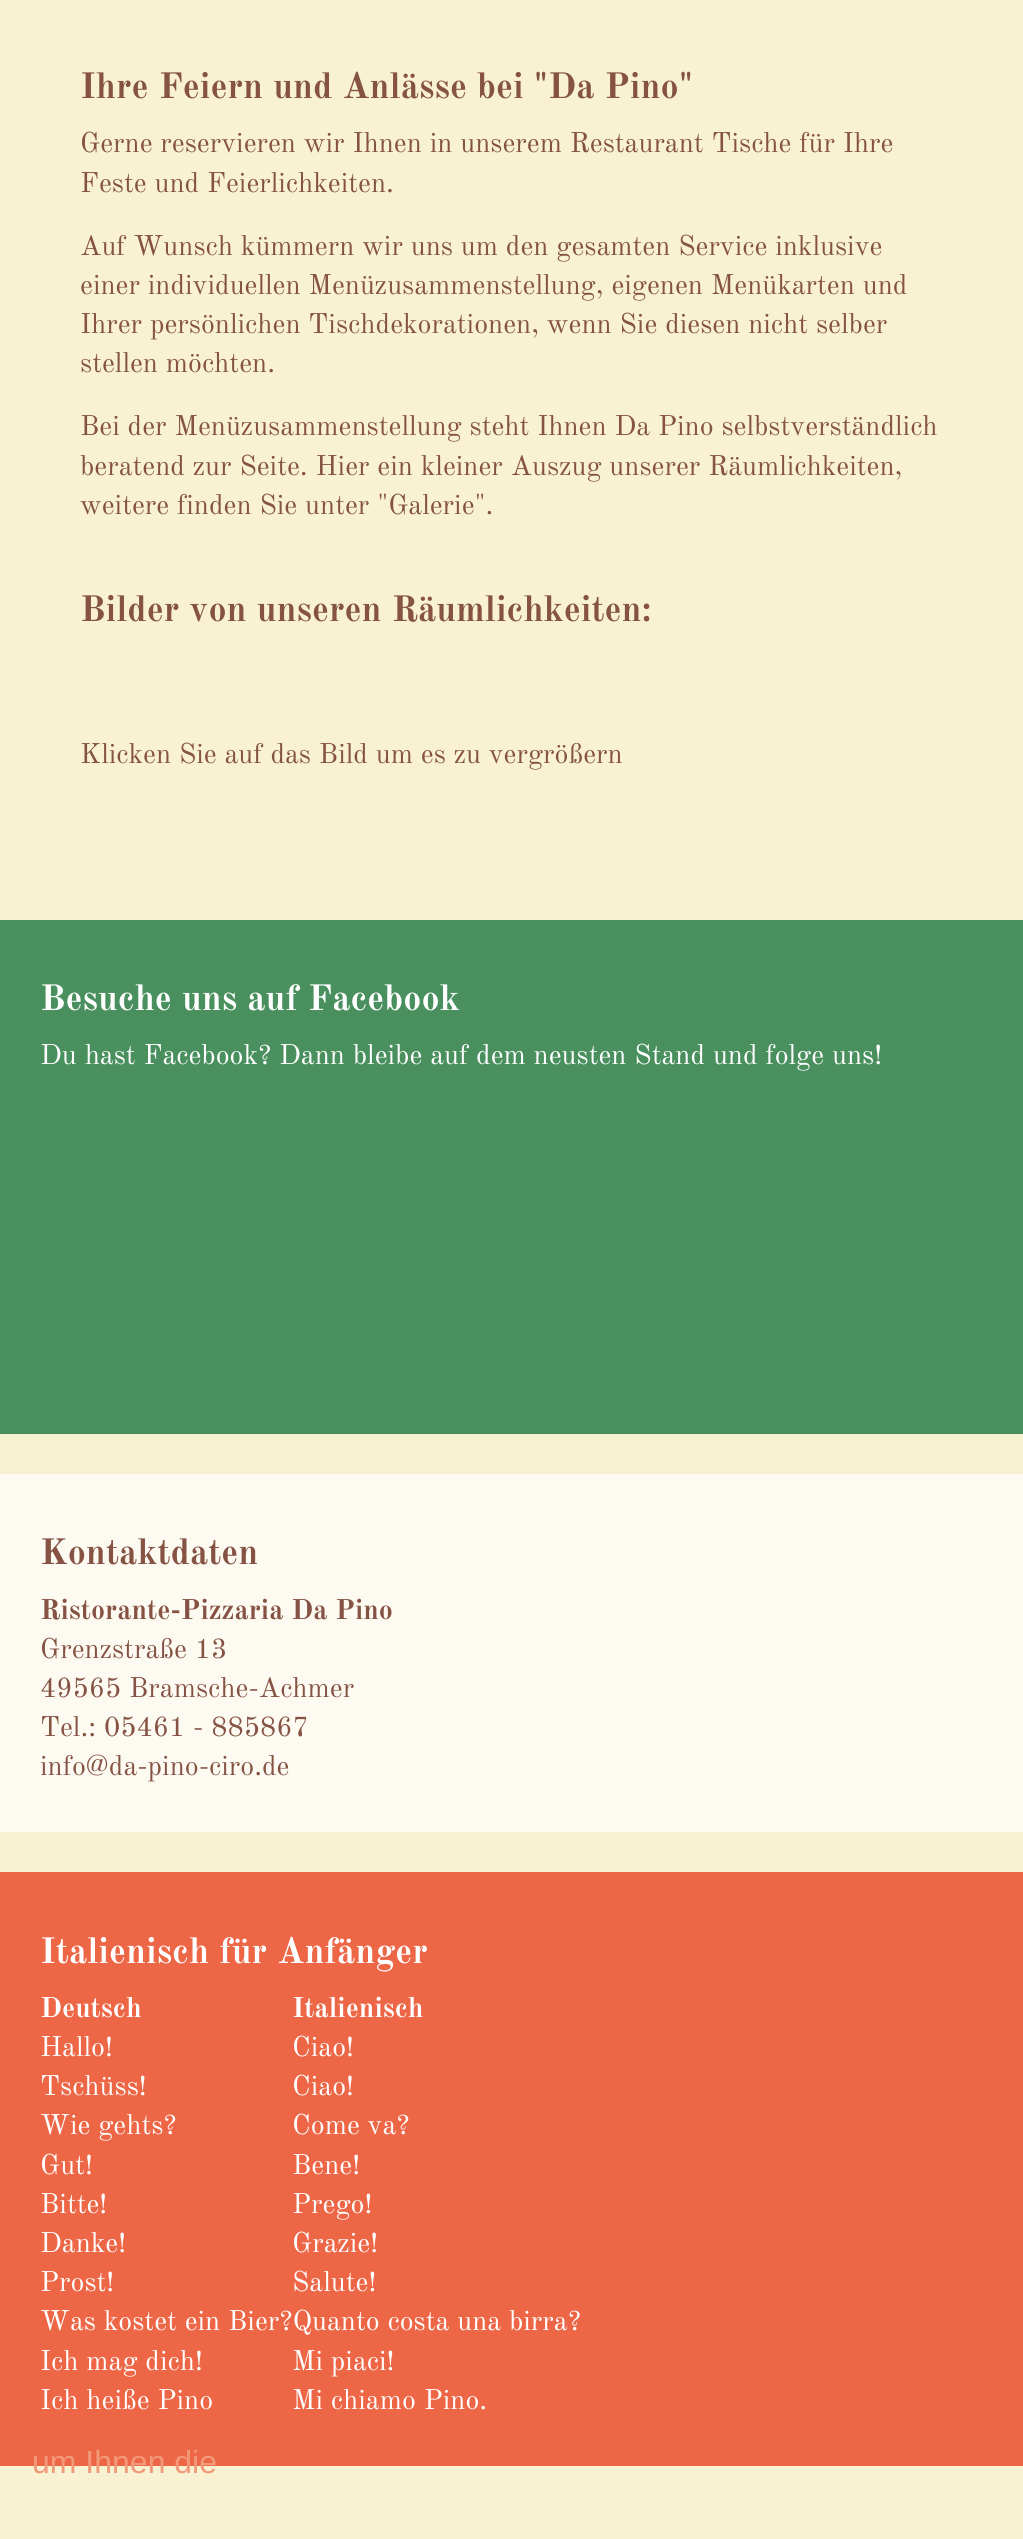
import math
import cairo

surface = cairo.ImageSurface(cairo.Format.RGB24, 1023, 2539)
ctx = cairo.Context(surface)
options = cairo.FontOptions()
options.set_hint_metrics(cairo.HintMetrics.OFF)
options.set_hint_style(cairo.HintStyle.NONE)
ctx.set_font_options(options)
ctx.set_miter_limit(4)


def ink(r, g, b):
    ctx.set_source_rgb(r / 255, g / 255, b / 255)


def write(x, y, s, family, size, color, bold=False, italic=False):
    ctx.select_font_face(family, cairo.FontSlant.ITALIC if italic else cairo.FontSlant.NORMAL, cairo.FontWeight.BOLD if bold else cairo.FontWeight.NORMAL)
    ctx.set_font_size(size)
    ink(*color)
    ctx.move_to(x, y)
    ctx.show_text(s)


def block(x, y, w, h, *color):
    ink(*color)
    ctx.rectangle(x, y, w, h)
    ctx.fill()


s1 = dict(family="Old Standard TT", size=36, color=(133, 82, 68), bold=True)
s2 = dict(family="Old Standard TT", size=28, color=(133, 82, 68))
s3 = dict(family="Old Standard TT", size=36, color=(255, 255, 255), bold=True)
s4 = dict(family="Old Standard TT", size=28, color=(255, 255, 255))
s5 = dict(family="Old Standard TT", size=28, color=(133, 82, 68), bold=True)
s6 = dict(family="Old Standard TT", size=28, color=(255, 255, 255), bold=True)
s7 = dict(family="Liberation Sans", size=32, color=(241, 153, 121))

ink(248, 242, 210)
ctx.paint()
write(80, 98, "Ihre Feiern und Anlässe bei \"Da Pino\"", **s1)
write(80, 152, "Gerne reservieren wir Ihnen in unserem Restaurant Tische für Ihre", **s2)
write(80, 192, "Feste und Feierlichkeiten.", **s2)
write(80, 255, "Auf Wunsch kümmern wir uns um den gesamten Service inklusive", **s2)
write(80, 294, "einer individuellen Menüzusammenstellung, eigenen Menükarten und", **s2)
write(80, 333, "Ihrer persönlichen Tischdekorationen, wenn Sie diesen nicht selber", **s2)
write(80, 372, "stellen möchten.", **s2)
write(80, 435, "Bei der Menüzusammenstellung steht Ihnen Da Pino selbstverständlich", **s2)
write(80, 475, "beratend zur Seite. Hier ein kleiner Auszug unserer Räumlichkeiten,", **s2)
write(80, 514, "weitere finden Sie unter \"Galerie\".", **s2)
write(80, 621, "Bilder von unseren Räumlichkeiten:", **s1)
write(80, 763, "Klicken Sie auf das Bild um es zu vergrößern", **s2)
block(0, 920, 1023, 514, 74, 144, 95)
write(40, 1010, "Besuche uns auf Facebook", **s3)
write(40, 1064, "Du hast Facebook? Dann bleibe auf dem neusten Stand und folge uns!", **s4)
block(0, 1474, 1023, 358, 253, 251, 241)
write(40, 1564, "Kontaktdaten", **s1)
write(40, 1619, "Ristorante-Pizzaria Da Pino", **s5)
write(40, 1658, "Grenzstraße 13", **s2)
write(40, 1697, "49565 Bramsche-Achmer", **s2)
write(40, 1736, "Tel.: 05461 - 885867", **s2)
write(40, 1775, "info@da-pino-ciro.de", **s2)
block(0, 1872, 1023, 594, 237, 103, 71)
write(40, 1963, "Italienisch für Anfänger", **s3)
write(40, 2017, "Deutsch", **s6)
write(292, 2017, "Italienisch", **s6)
write(40, 2056, "Hallo!", **s4)
write(292, 2056, "Ciao!", **s4)
write(40, 2095, "Tschüss!", **s4)
write(292, 2095, "Ciao!", **s4)
write(40, 2134, "Wie gehts?", **s4)
write(292, 2134, "Come va?", **s4)
write(40, 2174, "Gut!", **s4)
write(292, 2174, "Bene!", **s4)
write(40, 2213, "Bitte!", **s4)
write(292, 2213, "Prego!", **s4)
write(40, 2252, "Danke!", **s4)
write(292, 2252, "Grazie!", **s4)
write(40, 2291, "Prost!", **s4)
write(292, 2291, "Salute!", **s4)
write(40, 2330, "Was kostet ein Bier?Quanto costa una birra?", **s4)
write(40, 2370, "Ich mag dich!", **s4)
write(292, 2370, "Mi piaci!", **s4)
write(40, 2409, "Ich heiße Pino", **s4)
write(292, 2409, "Mi chiamo Pino.", **s4)
write(32, 2473, "um Ihnen die", **s7)
surface.write_to_png("screenshot.png")
